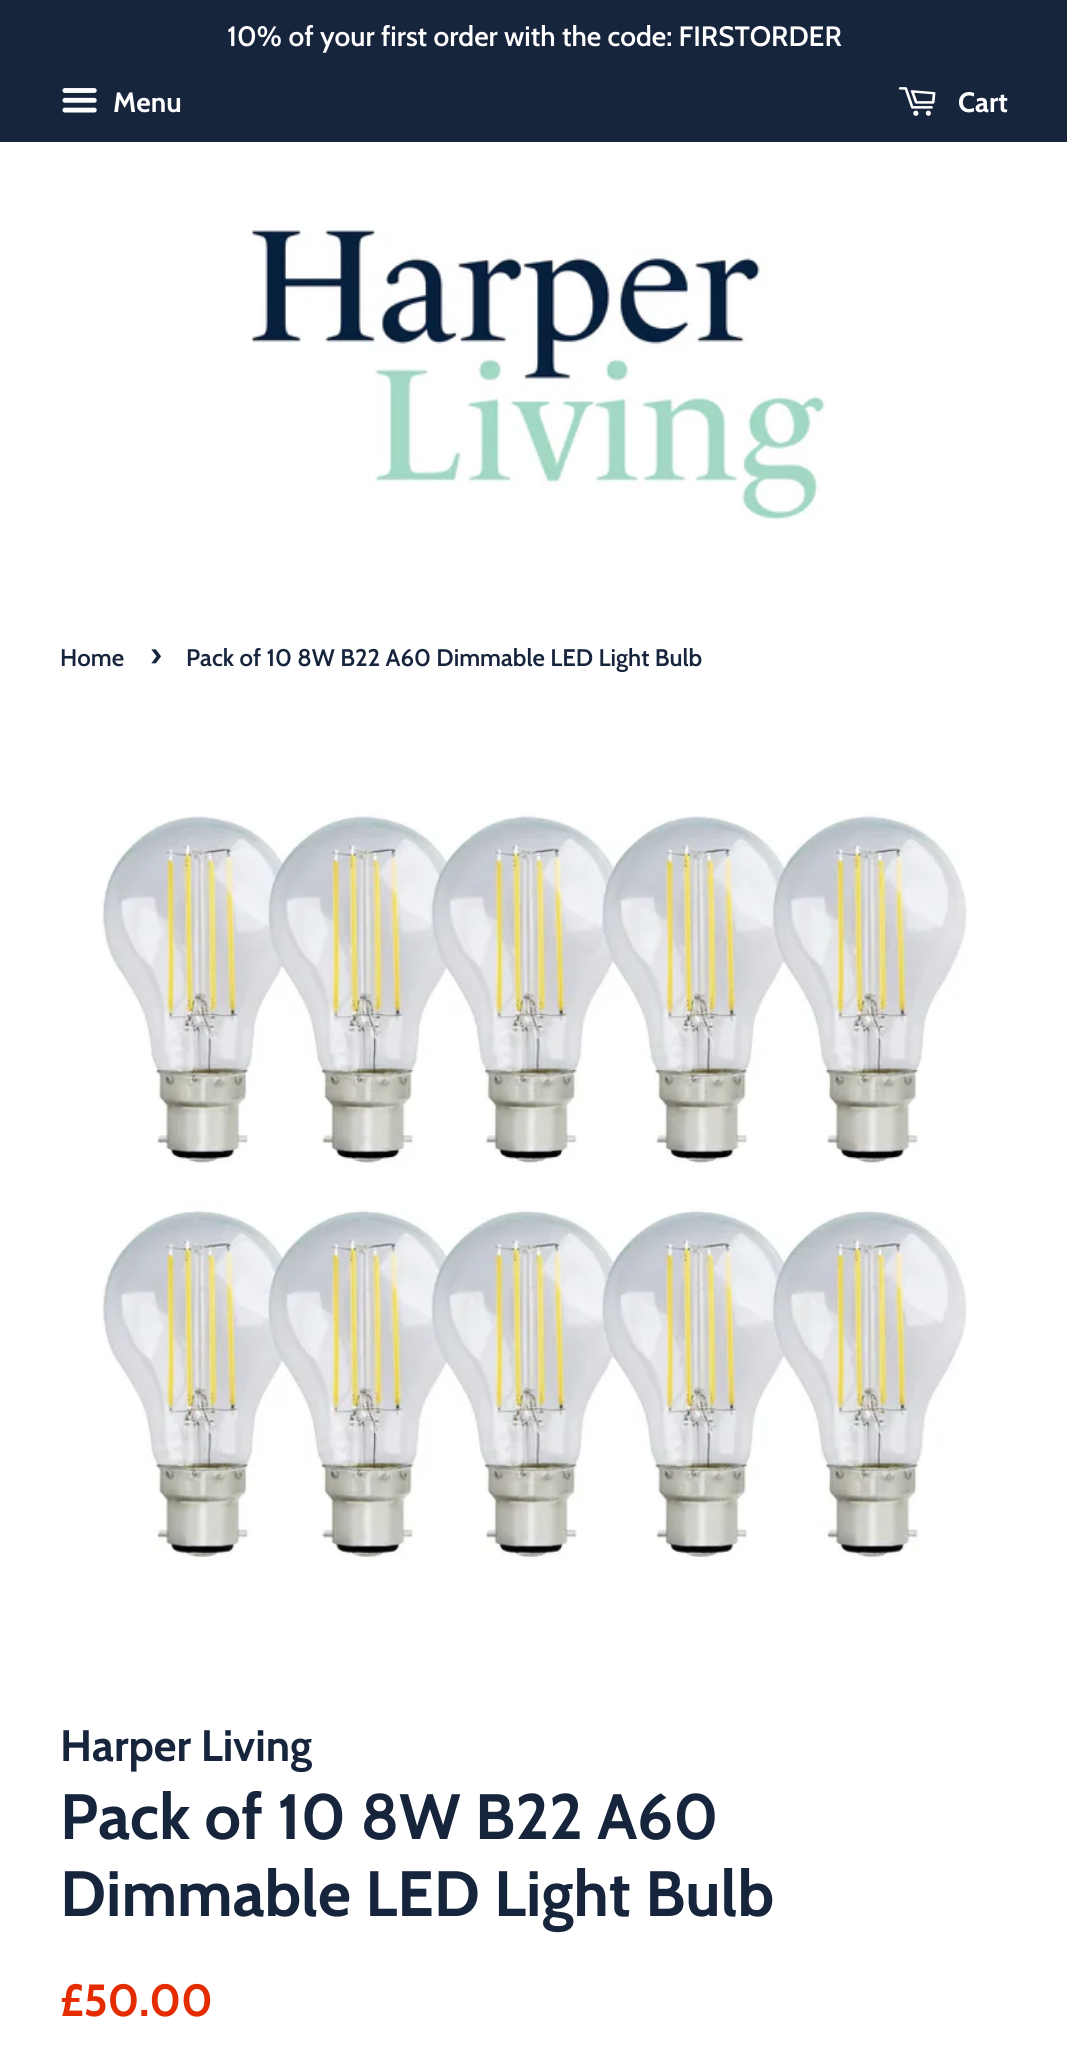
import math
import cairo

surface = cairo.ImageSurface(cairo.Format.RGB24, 1067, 2069)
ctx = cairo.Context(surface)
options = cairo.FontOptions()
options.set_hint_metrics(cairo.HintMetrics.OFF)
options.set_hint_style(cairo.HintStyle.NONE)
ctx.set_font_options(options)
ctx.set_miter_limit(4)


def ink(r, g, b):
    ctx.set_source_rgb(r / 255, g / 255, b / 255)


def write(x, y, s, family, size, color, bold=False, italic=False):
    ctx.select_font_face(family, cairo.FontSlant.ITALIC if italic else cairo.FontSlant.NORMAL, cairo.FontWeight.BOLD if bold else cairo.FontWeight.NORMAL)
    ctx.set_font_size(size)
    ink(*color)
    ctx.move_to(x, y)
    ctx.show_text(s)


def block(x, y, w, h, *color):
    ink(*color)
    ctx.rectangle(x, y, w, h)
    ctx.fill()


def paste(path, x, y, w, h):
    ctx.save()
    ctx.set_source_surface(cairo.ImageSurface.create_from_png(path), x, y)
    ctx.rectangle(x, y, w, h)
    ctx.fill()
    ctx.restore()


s1 = dict(family="Cabin SemiBold", size=28, color=(255, 255, 255))
s2 = dict(family="Cabin", size=28, color=(255, 255, 255), bold=True)
s3 = dict(family="Cabin SemiBold", size=24, color=(22, 36, 60))
s4 = dict(family="Cabin SemiBold", size=34, color=(22, 36, 60))
s5 = dict(family="Cabin", size=44, color=(22, 36, 60), bold=True)
s6 = dict(family="Cabin", size=64, color=(22, 36, 60), bold=True)
s7 = dict(family="Cabin", size=45, color=(228, 44, 0), bold=True)

ink(255, 255, 255)
ctx.paint()
block(0, 0, 1067, 142, 22, 36, 60)
write(227, 46, "10% of your first order with the code: FIRSTORDER", **s1)
paste("pic1.png", 62, 88, 35, 25)
write(113, 112, "Menu", **s2)
paste("pic2.png", 898, 87, 38, 29)
write(958, 112, "Cart", **s2)
paste("pic3.png", 251, 225, 574, 295)
write(60, 666, "Home", **s3)
write(150, 666, "›", **s4)
write(186, 666, "Pack of 10 8W B22 A60 Dimmable LED Light Bulb", **s3)
paste("pic4.png", 101, 813, 866, 748)
write(60, 1761, "Harper Living", **s5)
write(60, 1839, "Pack of 10 8W B22 A60", **s6)
write(60, 1916, "Dimmable LED Light Bulb", **s6)
write(60, 2016, "£50.00", **s7)
surface.write_to_png("screenshot.png")
